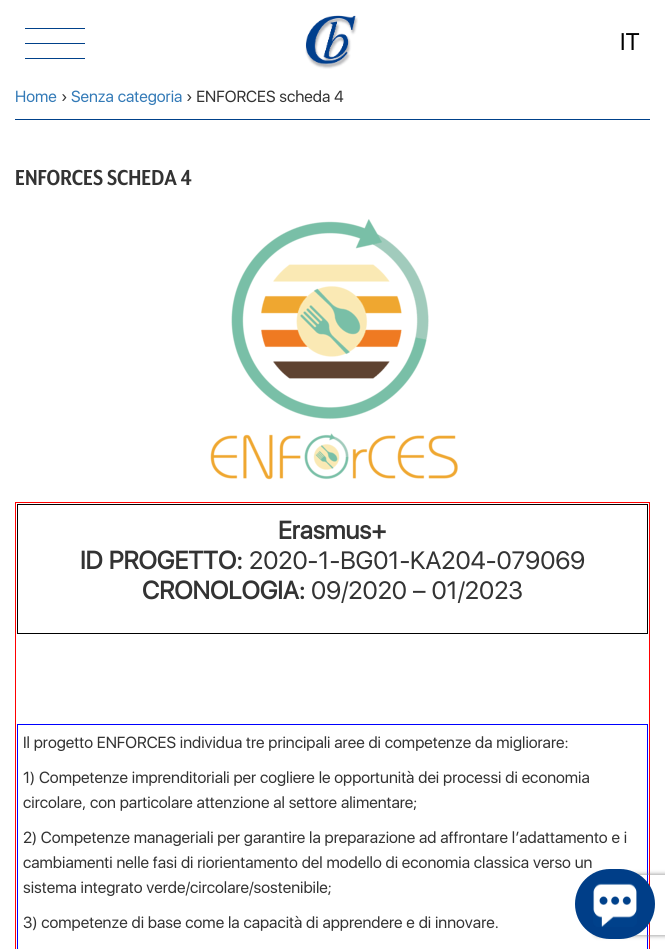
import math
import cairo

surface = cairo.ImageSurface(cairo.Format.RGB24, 665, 949)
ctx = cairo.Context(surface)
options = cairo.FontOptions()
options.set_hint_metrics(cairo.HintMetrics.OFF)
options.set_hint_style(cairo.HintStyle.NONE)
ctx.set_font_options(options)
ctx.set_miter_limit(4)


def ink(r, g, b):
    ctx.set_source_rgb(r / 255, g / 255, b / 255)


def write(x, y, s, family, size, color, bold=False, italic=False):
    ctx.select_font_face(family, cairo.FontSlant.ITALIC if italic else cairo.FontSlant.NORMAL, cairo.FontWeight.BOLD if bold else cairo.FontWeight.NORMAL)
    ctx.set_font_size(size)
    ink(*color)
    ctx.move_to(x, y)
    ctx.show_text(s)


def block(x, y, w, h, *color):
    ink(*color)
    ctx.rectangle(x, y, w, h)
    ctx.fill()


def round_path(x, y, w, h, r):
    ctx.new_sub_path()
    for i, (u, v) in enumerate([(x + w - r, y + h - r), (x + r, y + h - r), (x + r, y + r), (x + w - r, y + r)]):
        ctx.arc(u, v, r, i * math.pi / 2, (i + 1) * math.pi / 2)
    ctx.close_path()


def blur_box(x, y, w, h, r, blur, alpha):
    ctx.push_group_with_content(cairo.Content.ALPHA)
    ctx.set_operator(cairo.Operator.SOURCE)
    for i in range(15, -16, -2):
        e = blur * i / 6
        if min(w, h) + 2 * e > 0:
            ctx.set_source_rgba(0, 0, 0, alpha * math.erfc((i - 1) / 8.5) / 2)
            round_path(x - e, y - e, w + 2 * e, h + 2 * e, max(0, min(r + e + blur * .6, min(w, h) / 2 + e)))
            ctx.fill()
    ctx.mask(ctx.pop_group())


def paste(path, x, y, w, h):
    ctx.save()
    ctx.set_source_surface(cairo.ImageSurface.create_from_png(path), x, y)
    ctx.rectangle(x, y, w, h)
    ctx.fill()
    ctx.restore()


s1 = dict(family="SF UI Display", size=24, color=(0, 0, 0))
s2 = dict(family="SF UI Display", size=16, color=(51, 122, 183))
s3 = dict(family="SF UI Display", size=16, color=(51, 51, 51))
s4 = dict(family="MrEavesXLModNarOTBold", size=25, color=(51, 51, 51), bold=True)
s5 = dict(family="SF UI Display", size=25, color=(51, 51, 51), bold=True)
s6 = dict(family="SF UI Display", size=25, color=(51, 51, 51))

ink(255, 255, 255)
ctx.paint()
block(25, 28, 60, 1, 0, 65, 138)
block(25, 43, 60, 1, 0, 65, 138)
block(25, 58, 60, 1, 0, 65, 138)
paste("pic1.png", 305, 15, 53, 54)
write(620, 50, "IT", **s1)
block(15, 119, 635, 1, 0, 65, 138)
write(15, 102, "Home", **s2)
write(61, 102, "›", **s3)
write(71, 102, "Senza categoria", **s2)
write(186, 102, "› ENFORCES scheda 4", **s3)
write(15, 185, "ENFORCES SCHEDA 4", **s4)
paste("pic2.png", 210, 219, 248, 261)
ctx.rectangle(15.5, 502.5, 634, 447)
ink(255, 0, 0)
ctx.set_line_width(1)
ctx.stroke()
ctx.rectangle(17.5, 504.5, 630, 129)
ink(0, 0, 0)
ctx.stroke()
write(278, 539, "Erasmus+", **s5)
write(80, 569, "ID PROGETTO:", **s5)
write(249, 569, "2020-1-BG01-KA204-079069", **s6)
write(142, 599, "CRONOLOGIA:", **s5)
write(311, 599, "09/2020 – 01/2023", **s6)
ctx.rectangle(17.5, 724.5, 630, 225)
ink(0, 0, 255)
ctx.stroke()
write(23, 748, "Il progetto ENFORCES individua tre principali aree di competenze da migliorare:", **s3)
write(23, 783, "1) Competenze imprenditoriali per cogliere le opportunità dei processi di economia", **s3)
write(23, 808, "circolare, con particolare attenzione al settore alimentare;", **s3)
write(23, 843, "2) Competenze manageriali per garantire la preparazione ad affrontare l’adattamento e i", **s3)
write(23, 868, "cambiamenti nelle fasi di riorientamento del modello di economia classica verso un", **s3)
write(23, 893, "sistema integrato verde/circolare/sostenibile;", **s3)
write(23, 928, "3) competenze di base come la capacità di apprendere e di innovare.", **s3)
ctx.save()
ctx.set_fill_rule(cairo.FillRule.EVEN_ODD)
ctx.new_path()
ctx.move_to(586, 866)
ctx.line_to(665, 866)
ctx.line_to(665, 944)
ctx.line_to(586, 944)
ctx.close_path()
ctx.move_to(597, 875)
ctx.line_to(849, 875)
ctx.curve_to(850, 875, 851, 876, 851, 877)
ctx.line_to(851, 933)
ctx.curve_to(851, 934, 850, 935, 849, 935)
ctx.line_to(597, 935)
ctx.curve_to(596, 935, 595, 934, 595, 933)
ctx.line_to(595, 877)
ctx.curve_to(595, 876, 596, 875, 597, 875)
ctx.close_path()
ctx.clip()
ink(128, 128, 128)
blur_box(595, 875, 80, 60, 2, 2.5, 1)
ctx.restore()
ink(0, 62, 136)
round_path(575, 869, 80, 70, 35)
ctx.fill()
paste("pic3.png", 593, 883, 44, 44)
surface.write_to_png("screenshot.png")
